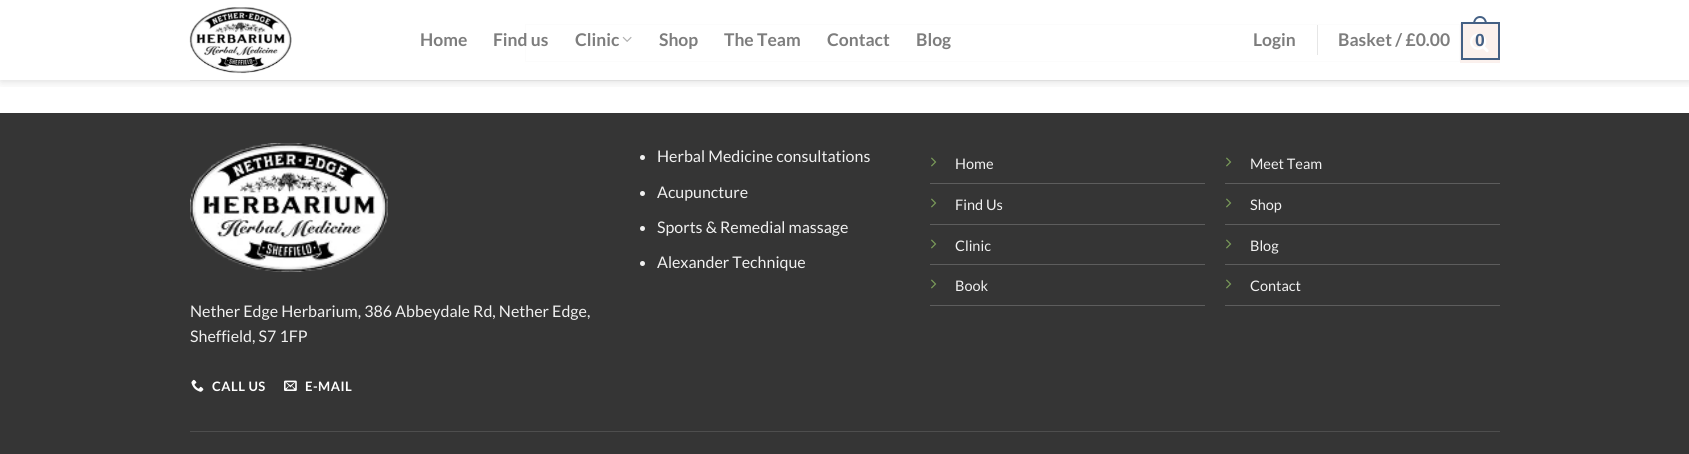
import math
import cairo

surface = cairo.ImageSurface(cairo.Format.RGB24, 1689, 454)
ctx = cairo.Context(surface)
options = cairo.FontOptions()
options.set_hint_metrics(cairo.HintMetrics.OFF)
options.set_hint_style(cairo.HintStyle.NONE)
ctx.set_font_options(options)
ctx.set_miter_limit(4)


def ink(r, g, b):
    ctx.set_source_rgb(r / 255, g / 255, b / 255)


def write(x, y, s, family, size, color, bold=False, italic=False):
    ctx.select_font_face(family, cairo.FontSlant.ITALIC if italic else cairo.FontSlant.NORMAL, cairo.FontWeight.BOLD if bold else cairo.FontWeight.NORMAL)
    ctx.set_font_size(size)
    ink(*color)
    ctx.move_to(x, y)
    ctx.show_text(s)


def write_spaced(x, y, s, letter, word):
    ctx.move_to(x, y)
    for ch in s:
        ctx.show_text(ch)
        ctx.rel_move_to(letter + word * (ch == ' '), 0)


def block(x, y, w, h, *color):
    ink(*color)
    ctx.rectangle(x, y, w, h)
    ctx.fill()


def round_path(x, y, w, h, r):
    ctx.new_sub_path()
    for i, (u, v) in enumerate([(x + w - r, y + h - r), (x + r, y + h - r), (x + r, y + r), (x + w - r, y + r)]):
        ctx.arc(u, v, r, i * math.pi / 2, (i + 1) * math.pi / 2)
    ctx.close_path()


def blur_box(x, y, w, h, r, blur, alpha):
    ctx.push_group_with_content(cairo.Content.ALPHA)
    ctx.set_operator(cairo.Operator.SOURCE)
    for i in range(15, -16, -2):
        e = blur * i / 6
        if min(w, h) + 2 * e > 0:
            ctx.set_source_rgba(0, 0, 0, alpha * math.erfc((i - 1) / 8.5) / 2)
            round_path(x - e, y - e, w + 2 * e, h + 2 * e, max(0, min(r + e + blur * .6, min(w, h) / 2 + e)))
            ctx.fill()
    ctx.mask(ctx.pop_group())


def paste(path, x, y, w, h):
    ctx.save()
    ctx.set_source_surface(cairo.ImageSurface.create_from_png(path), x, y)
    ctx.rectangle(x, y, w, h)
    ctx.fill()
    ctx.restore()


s1 = dict(family="Lato", size=17.5, color=(125, 125, 125), bold=True)
s2 = dict(family="Liberation Sans", size=17.5, color=(68, 96, 132), bold=True)
s3 = dict(family="Lato", size=16, color=(241, 241, 241))
s4 = dict(family="Lato", size=14.5, color=(241, 241, 241))

ink(255, 255, 255)
ctx.paint()
ctx.rectangle(525.5, 24.5, 934, 37)
ink(252, 252, 252)
ctx.set_line_width(1)
ctx.stroke()
ink(251, 241, 237)
ctx.rectangle(1460.5, 23.5, 39, 39)
ctx.fill_preserve()
ink(250, 240, 237)
ctx.stroke()
paste("pic1.png", 1470, 33, 19, 20)
ctx.save()
ctx.rectangle(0, 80, 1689, 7)
ctx.clip()
ink(0, 0, 0)
blur_box(1, 1, 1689, 80, 0, 5, 0.15)
ctx.restore()
paste("pic2.png", 189, 7, 103, 67)
write(420, 46, "Home", **s1)
write(493, 46, "Find us", **s1)
write(575, 46, "Clinic", **s1)
paste("pic3.png", 622, 36, 10, 6)
write(659, 46, "Shop", **s1)
write(724, 46, "The Team", **s1)
write(827, 46, "Contact", **s1)
write(916, 46, "Blog", **s1)
write(1253, 46, "Login", **s1)
block(1317, 25, 1, 30, 230, 230, 230)
write(1338, 46, "Basket / £0.00", **s1)
ctx.rectangle(1462, 23, 37, 36)
ink(68, 96, 132)
ctx.set_line_width(2)
ctx.stroke()
ctx.set_fill_rule(cairo.FillRule.EVEN_ODD)
ctx.new_path()
ctx.move_to(1480, 16)
ctx.curve_to(1484.5, 16, 1487, 20, 1487, 24)
ctx.line_to(1473, 24)
ctx.curve_to(1473, 20, 1475.5, 16, 1480, 16)
ctx.close_path()
ctx.move_to(1480, 18)
ctx.curve_to(1483.5, 18, 1485, 21, 1485, 24)
ctx.line_to(1475, 24)
ctx.curve_to(1475, 21, 1476.5, 18, 1480, 18)
ctx.close_path()
ctx.fill()
write(1475, 46, "0", **s2)
block(190, 80, 1310, 1, 223, 223, 223)
block(0, 113, 1689, 341, 53, 53, 53)
ink(241, 241, 241)
ctx.new_path()
ctx.arc(642.5, 157.5, 2.5, 0, 2 * math.pi)
ctx.fill()
write(657, 162, "Herbal Medicine consultations", **s3)
ctx.new_path()
ctx.arc(642.5, 193.5, 2.5, 0, 2 * math.pi)
ctx.fill()
write(657, 198, "Acupuncture", **s3)
ctx.new_path()
ctx.arc(642.5, 228.5, 2.5, 0, 2 * math.pi)
ctx.fill()
write(657, 233, "Sports & Remedial massage", **s3)
ctx.new_path()
ctx.arc(642.5, 263.5, 2.5, 0, 2 * math.pi)
ctx.fill()
write(657, 268, "Alexander Technique", **s3)
block(930, 183, 275, 1, 93, 93, 93)
paste("pic4.png", 931, 157, 6, 10)
write(955, 169, "Home", **s4)
block(930, 224, 275, 1, 93, 93, 93)
paste("pic4.png", 931, 198, 6, 10)
write(955, 210, "Find Us", **s4)
block(930, 264, 275, 1, 93, 93, 93)
paste("pic4.png", 931, 239, 6, 10)
write(955, 251, "Clinic", **s4)
block(930, 305, 275, 1, 93, 93, 93)
paste("pic4.png", 931, 279, 6, 10)
write(955, 291, "Book", **s4)
block(1225, 183, 275, 1, 93, 93, 93)
paste("pic4.png", 1226, 157, 6, 10)
write(1250, 169, "Meet Team", **s4)
block(1225, 224, 275, 1, 93, 93, 93)
paste("pic4.png", 1226, 198, 6, 10)
write(1250, 210, "Shop", **s4)
block(1225, 264, 275, 1, 93, 93, 93)
paste("pic4.png", 1226, 239, 6, 10)
write(1250, 251, "Blog", **s4)
block(1225, 305, 275, 1, 93, 93, 93)
paste("pic4.png", 1226, 279, 6, 10)
write(1250, 291, "Contact", **s4)
paste("pic5.png", 190, 143, 198, 129)
write(190, 317, "Nether Edge Herbarium, 386 Abbeydale Rd, Nether Edge,", **s3)
write(190, 342, "Sheffield, S7 1FP", **s3)
paste("pic6.png", 191, 379, 13, 13)
ctx.select_font_face("Lato", cairo.FontSlant.NORMAL, cairo.FontWeight.BOLD)
ctx.set_font_size(13)
ink(255, 255, 255)
write_spaced(212, 391, "CALL US", 0.5, 0)
paste("pic7.png", 284, 380, 13, 11)
write_spaced(305, 391, "E-MAIL", 0.5, 0)
block(190, 431, 1310, 1, 78, 78, 78)
surface.write_to_png("screenshot.png")
